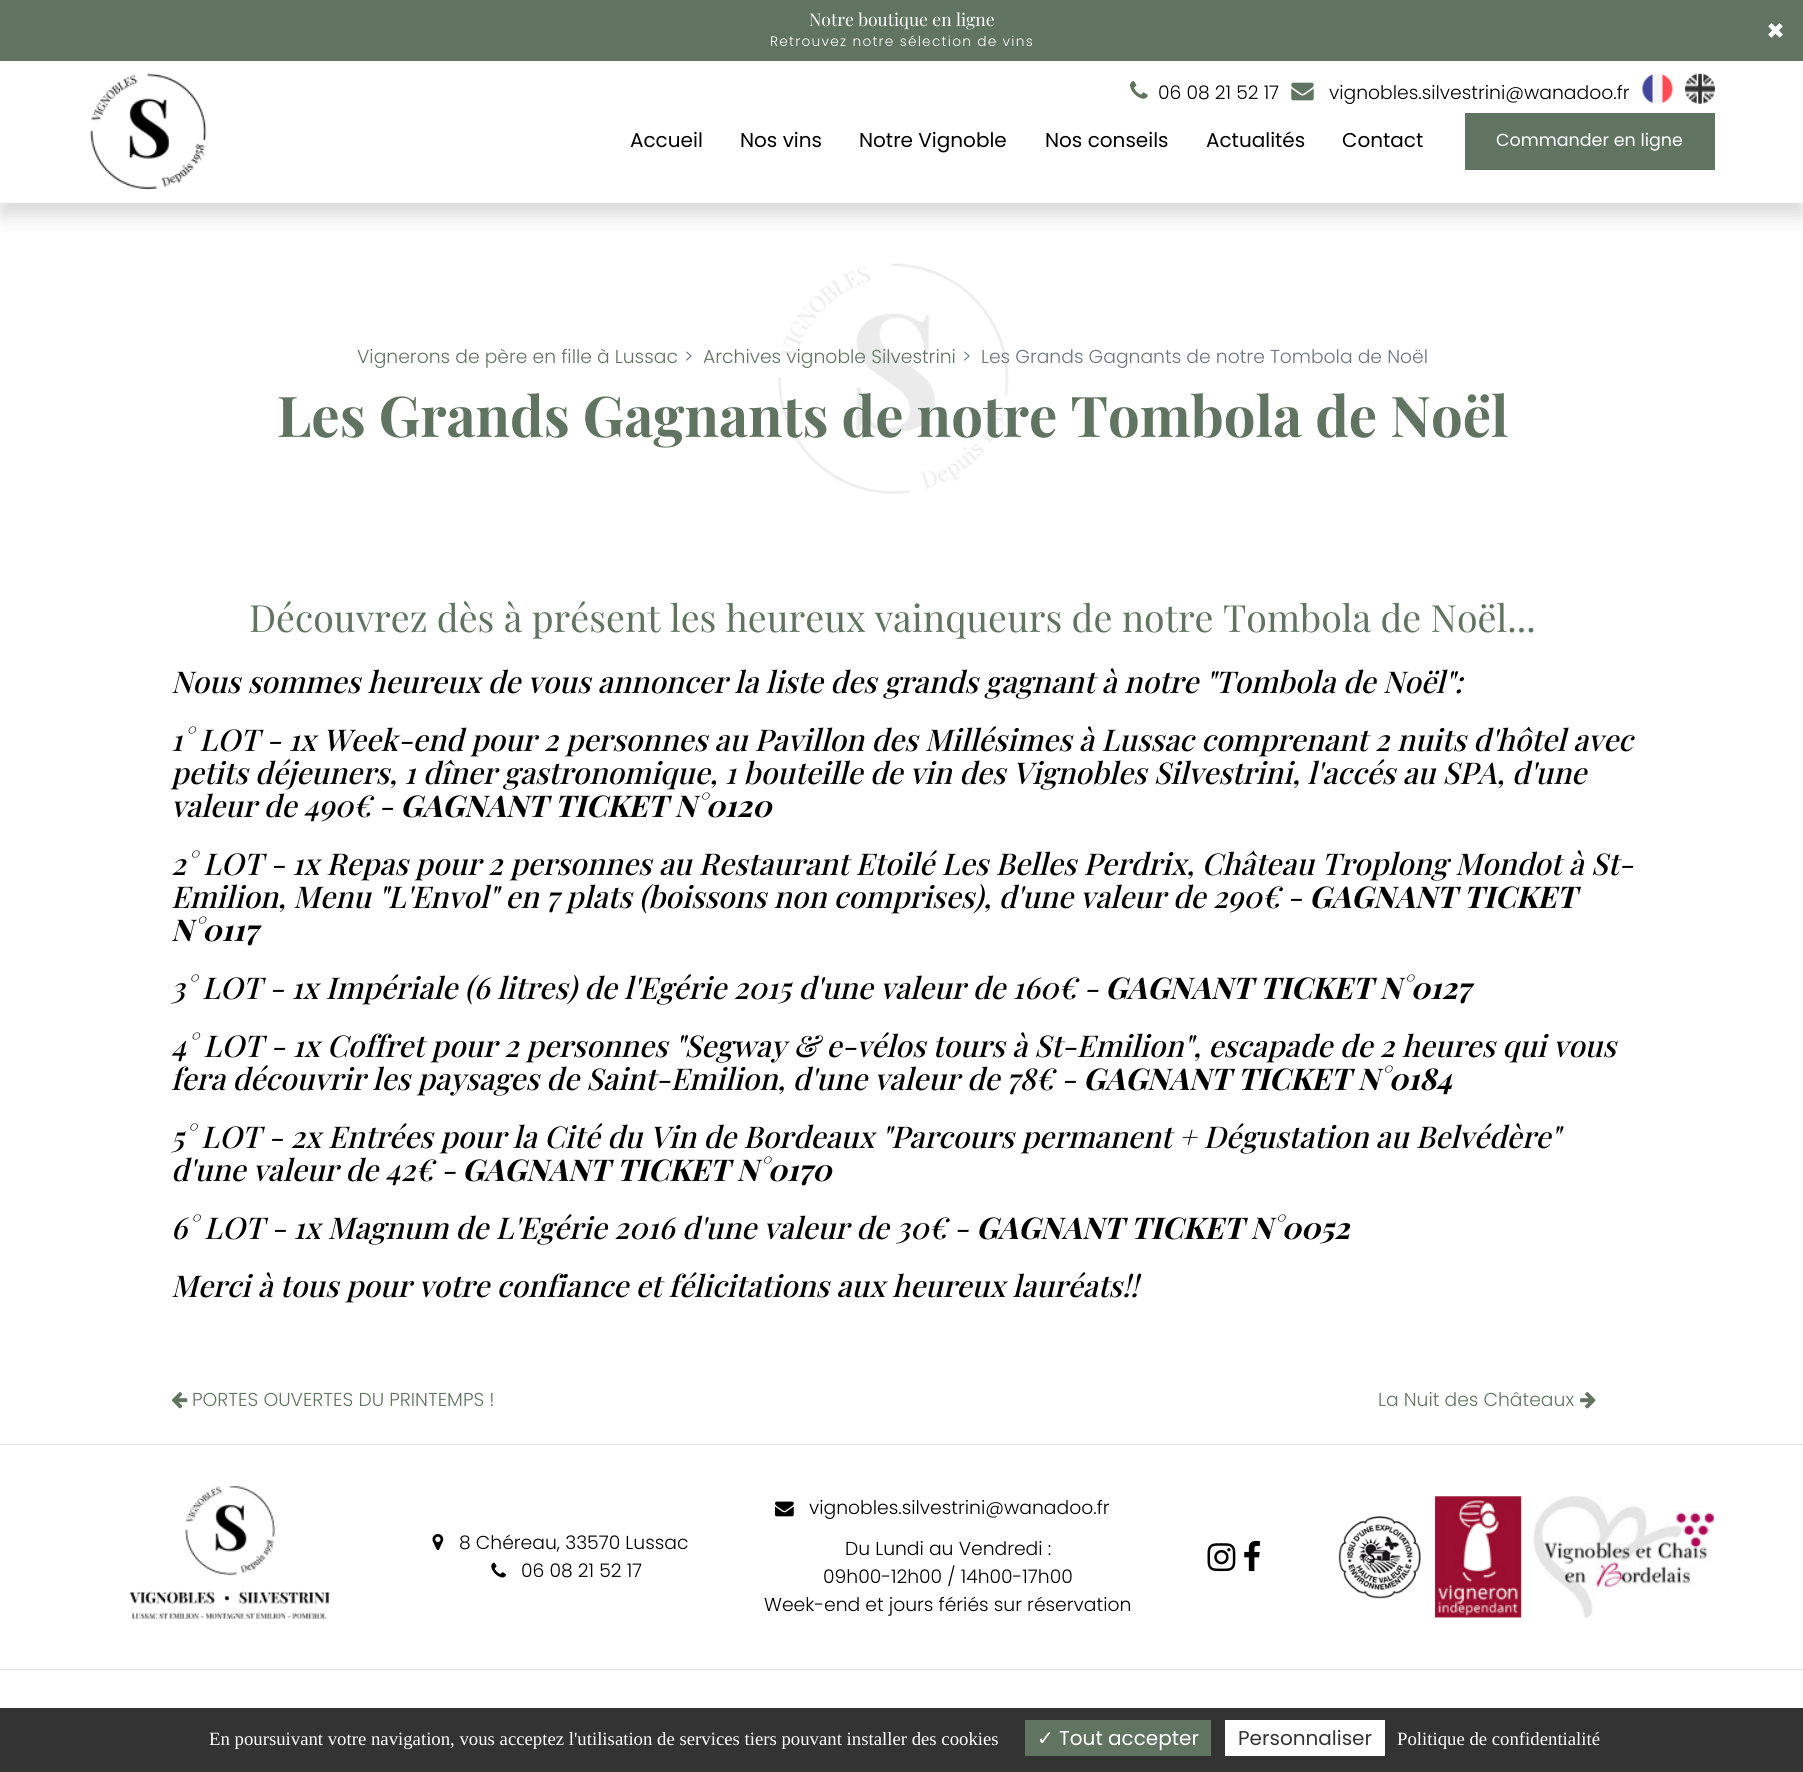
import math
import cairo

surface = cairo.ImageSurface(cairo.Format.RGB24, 1803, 1772)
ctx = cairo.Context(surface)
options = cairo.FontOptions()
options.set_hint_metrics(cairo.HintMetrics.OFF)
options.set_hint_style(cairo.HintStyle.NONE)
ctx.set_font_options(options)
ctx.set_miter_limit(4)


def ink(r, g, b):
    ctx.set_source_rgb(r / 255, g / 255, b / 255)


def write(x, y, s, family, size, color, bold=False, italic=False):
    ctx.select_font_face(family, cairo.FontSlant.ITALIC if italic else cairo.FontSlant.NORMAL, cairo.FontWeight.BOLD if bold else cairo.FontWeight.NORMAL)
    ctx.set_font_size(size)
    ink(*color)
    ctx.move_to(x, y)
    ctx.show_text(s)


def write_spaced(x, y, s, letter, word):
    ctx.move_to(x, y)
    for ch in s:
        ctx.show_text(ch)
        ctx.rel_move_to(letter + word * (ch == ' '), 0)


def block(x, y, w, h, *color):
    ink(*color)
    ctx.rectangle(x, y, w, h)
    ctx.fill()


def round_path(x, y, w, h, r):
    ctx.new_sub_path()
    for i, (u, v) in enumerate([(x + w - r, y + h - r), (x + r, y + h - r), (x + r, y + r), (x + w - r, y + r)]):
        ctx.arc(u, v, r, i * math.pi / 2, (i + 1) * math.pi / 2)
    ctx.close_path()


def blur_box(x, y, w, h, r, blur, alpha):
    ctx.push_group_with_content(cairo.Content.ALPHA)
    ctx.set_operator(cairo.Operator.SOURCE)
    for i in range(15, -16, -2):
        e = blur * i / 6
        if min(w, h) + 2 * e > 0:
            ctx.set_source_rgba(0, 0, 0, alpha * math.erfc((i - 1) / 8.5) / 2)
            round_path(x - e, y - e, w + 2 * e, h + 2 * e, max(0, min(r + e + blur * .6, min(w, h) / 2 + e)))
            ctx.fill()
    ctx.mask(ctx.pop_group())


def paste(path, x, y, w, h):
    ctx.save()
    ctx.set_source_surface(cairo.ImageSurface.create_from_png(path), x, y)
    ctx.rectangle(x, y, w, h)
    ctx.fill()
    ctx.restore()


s1 = dict(family="Playfair Display", size=17.5, color=(255, 255, 255))
s2 = dict(family="Poppins", size=30, color=(255, 255, 255), bold=True)
s3 = dict(family="Poppins Light", size=18.75, color=(0, 0, 0))
s4 = dict(family="Poppins", size=20, color=(0, 0, 0))
s5 = dict(family="Poppins", size=17.5, color=(255, 255, 255))
s6 = dict(family="Poppins Light", size=18.75, color=(97, 116, 97))
s7 = dict(family="Poppins Light", size=18.75, color=(108, 117, 125))
s8 = dict(family="Playfair Display", size=56.25, color=(97, 116, 97), bold=True)
s9 = dict(family="Playfair Display", size=37.5, color=(97, 116, 97))
s10 = dict(family="Playfair Display Medium", size=30, color=(0, 0, 0), italic=True)
s11 = dict(family="Playfair Display", size=30, color=(0, 0, 0), bold=True, italic=True)
s12 = dict(family="Liberation Serif", size=18.75, color=(255, 255, 255))
s13 = dict(family="DejaVu Sans", size=20, color=(255, 255, 255))
s14 = dict(family="Poppins", size=20, color=(255, 255, 255))
s15 = dict(family="Poppins", size=20, color=(51, 51, 51))

ink(255, 255, 255)
ctx.paint()
ctx.save()
ctx.set_fill_rule(cairo.FillRule.EVEN_ODD)
ctx.new_path()
ctx.move_to(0, 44)
ctx.line_to(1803, 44)
ctx.line_to(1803, 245)
ctx.line_to(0, 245)
ctx.close_path()
ctx.move_to(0, 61)
ctx.line_to(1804, 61)
ctx.line_to(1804, 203)
ctx.line_to(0, 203)
ctx.close_path()
ctx.clip()
ink(0, 0, 0)
blur_box(0, 74, 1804, 141, 0, 9.5, 0.15)
ctx.restore()
block(0, 0, 1803, 61, 97, 116, 97)
write(809, 26, "Notre boutique en ligne", **s1)
ctx.select_font_face("Poppins Light")
ctx.set_font_size(13.75)
write_spaced(770, 46, "Retrouvez notre sélection de vins", 1.25, 0)
write(1766, 41, "×", **s2)
paste("pic1.png", 90, 73, 117, 117)
paste("pic2.png", 1130, 81, 18, 18)
write(1158, 99, "06 08 21 52 17", **s3)
paste("pic3.png", 1291, 82, 23, 19)
write(1329, 99, "vignobles.silvestrini@wanadoo.fr", **s3)
paste("pic4.png", 1642, 74, 31, 30)
paste("pic5.png", 1685, 73, 30, 31)
write(630, 147, "Accueil", **s4)
write(740, 147, "Nos vins", **s4)
write(859, 147, "Notre Vignoble", **s4)
write(1045, 147, "Nos conseils", **s4)
write(1206, 147, "Actualités", **s4)
write(1342, 147, "Contact", **s4)
block(1465, 113, 250, 57, 97, 116, 97)
write(1496, 146, "Commander en ligne", **s5)
paste("pic6.png", 778, 263, 231, 231)
write(357, 363, "Vignerons de père en fille à Lussac", **s6)
write(684, 363, ">", **s7)
write(703, 363, "Archives vignoble Silvestrini", **s6)
write(962, 363, ">", **s7)
write(981, 363, "Les Grands Gagnants de notre Tombola de Noël", **s7)
write(277, 437, "Les Grands Gagnants de notre Tombola de Noël", **s8)
write(249, 632, "Découvrez dès à présent les heureux vainqueurs de notre Tombola de Noël...", **s9)
write(171, 693, "Nous sommes heureux de vous annoncer la liste des grands gagnant à notre \"Tombola de Noël\":", **s10)
write(171, 751, "1° LOT - 1x Week-end pour 2 personnes au Pavillon des Millésimes à Lussac comprenant 2 nuits d'hôtel avec", **s10)
write(171, 784, "petits déjeuners, 1 dîner gastronomique, 1 bouteille de vin des Vignobles Silvestrini, l'accés au SPA, d'une", **s10)
write(171, 817, "valeur de 490€ -", **s10)
write(400, 817, "GAGNANT TICKET N°0120", **s11)
write(171, 875, "2° LOT - 1x Repas pour 2 personnes au Restaurant Etoilé Les Belles Perdrix, Château Troplong Mondot à St-", **s10)
write(171, 908, "Emilion, Menu \"L'Envol\" en 7 plats (boissons non comprises), d'une valeur de 290€ -", **s10)
write(1309, 908, "GAGNANT TICKET", **s11)
write(171, 941, "N°0117", **s11)
write(171, 999, "3° LOT - 1x Impériale (6 litres) de l'Egérie 2015 d'une valeur de 160€ -", **s10)
write(1105, 999, "GAGNANT TICKET N°0127", **s11)
write(171, 1057, "4° LOT - 1x Coffret pour 2 personnes \"Segway & e-vélos tours à St-Emilion\", escapade de 2 heures qui vous", **s10)
write(171, 1090, "fera découvrir les paysages de Saint-Emilion, d'une valeur de 78€ -", **s10)
write(1083, 1090, "GAGNANT TICKET N°0184", **s11)
write(171, 1148, "5° LOT - 2x Entrées pour la Cité du Vin de Bordeaux \"Parcours permanent + Dégustation au Belvédère\"", **s10)
write(171, 1181, "d'une valeur de 42€ -", **s10)
write(462, 1181, "GAGNANT TICKET N°0170", **s11)
write(171, 1239, "6° LOT - 1x Magnum de L'Egérie 2016 d'une valeur de 30€ -", **s10)
write(976, 1239, "GAGNANT TICKET N°0052", **s11)
write(171, 1297, "Merci à tous pour votre confiance et félicitations aux heureux lauréats!!", **s10)
paste("pic7.png", 171, 1392, 17, 17)
write(192, 1406, "PORTES OUVERTES DU PRINTEMPS !", **s6)
write(1378, 1406, "La Nuit des Châteaux", **s6)
paste("pic8.png", 1580, 1392, 16, 17)
block(0, 1444, 1803, 1, 226, 226, 226)
block(0, 1669, 1803, 1, 226, 226, 226)
paste("pic9.png", 129, 1486, 201, 133)
paste("pic10.png", 432, 1534, 12, 17)
write(459, 1549, "8 Chéreau, 33570 Lussac", **s3)
paste("pic11.png", 491, 1562, 15, 16)
write(521, 1577, "06 08 21 52 17", **s3)
paste("pic12.png", 775, 1501, 19, 16)
write(809, 1514, "vignobles.silvestrini@wanadoo.fr", **s3)
write(845, 1555, "Du Lundi au Vendredi :", **s3)
write(823, 1583, "09h00-12h00 / 14h00-17h00", **s3)
write(764, 1611, "Week-end et jours fériés sur réservation", **s3)
paste("pic13.png", 1207, 1543, 29, 29)
paste("pic14.png", 1244, 1540, 16, 32)
paste("pic15.png", 1338, 1516, 83, 83)
paste("pic16.png", 1435, 1496, 87, 122)
paste("pic17.png", 1533, 1496, 181, 122)
block(0, 1708, 1803, 64, 51, 51, 51)
write(209, 1745, "En poursuivant votre navigation, vous acceptez l'utilisation de services tiers pouvant installer des cookies", **s12)
block(1025, 1720, 186, 36, 97, 116, 97)
write(1037, 1745, "✓", **s13)
write(1059, 1745, "Tout accepter", **s14)
block(1225, 1720, 160, 36, 255, 255, 255)
write(1238, 1745, "Personnaliser", **s15)
write(1397, 1745, "Politique de confidentialité", **s12)
surface.write_to_png("screenshot.png")
